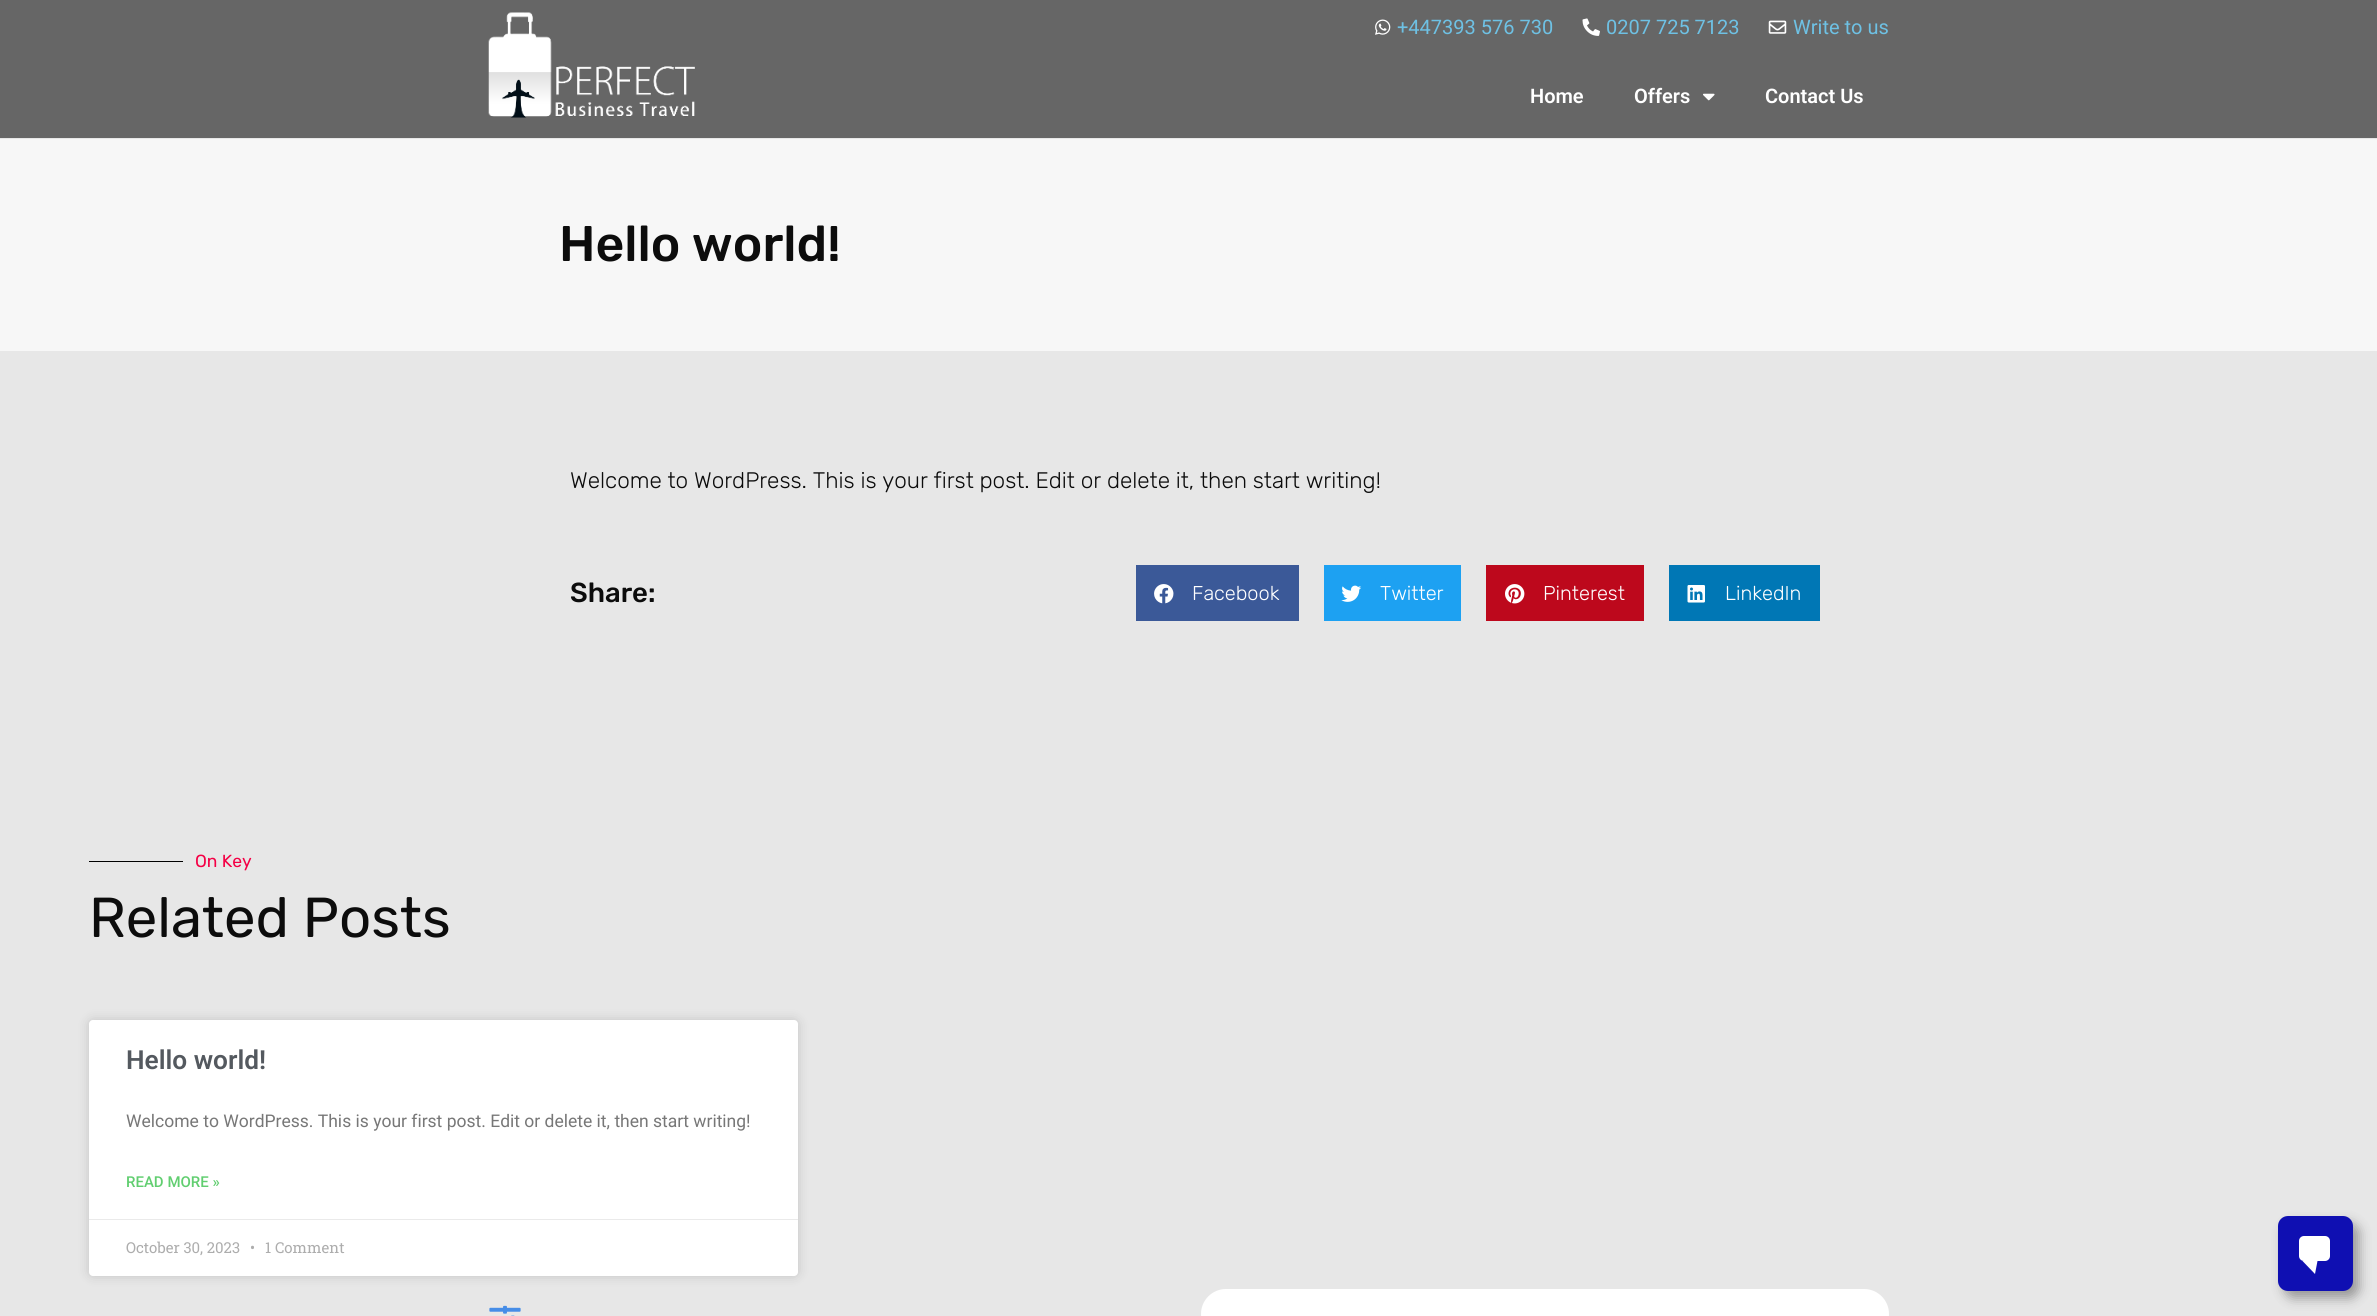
import math
import cairo

surface = cairo.ImageSurface(cairo.Format.RGB24, 2377, 1316)
ctx = cairo.Context(surface)
options = cairo.FontOptions()
options.set_hint_metrics(cairo.HintMetrics.OFF)
options.set_hint_style(cairo.HintStyle.NONE)
ctx.set_font_options(options)
ctx.set_miter_limit(4)


def ink(r, g, b):
    ctx.set_source_rgb(r / 255, g / 255, b / 255)


def write(x, y, s, family, size, color, bold=False, italic=False):
    ctx.select_font_face(family, cairo.FontSlant.ITALIC if italic else cairo.FontSlant.NORMAL, cairo.FontWeight.BOLD if bold else cairo.FontWeight.NORMAL)
    ctx.set_font_size(size)
    ink(*color)
    ctx.move_to(x, y)
    ctx.show_text(s)


def block(x, y, w, h, *color):
    ink(*color)
    ctx.rectangle(x, y, w, h)
    ctx.fill()


def round_path(x, y, w, h, r):
    ctx.new_sub_path()
    for i, (u, v) in enumerate([(x + w - r, y + h - r), (x + r, y + h - r), (x + r, y + r), (x + w - r, y + r)]):
        ctx.arc(u, v, r, i * math.pi / 2, (i + 1) * math.pi / 2)
    ctx.close_path()


def blur_box(x, y, w, h, r, blur, alpha):
    ctx.push_group_with_content(cairo.Content.ALPHA)
    ctx.set_operator(cairo.Operator.SOURCE)
    for i in range(15, -16, -2):
        e = blur * i / 6
        if min(w, h) + 2 * e > 0:
            ctx.set_source_rgba(0, 0, 0, alpha * math.erfc((i - 1) / 8.5) / 2)
            round_path(x - e, y - e, w + 2 * e, h + 2 * e, max(0, min(r + e + blur * .6, min(w, h) / 2 + e)))
            ctx.fill()
    ctx.mask(ctx.pop_group())


def paste(path, x, y, w, h):
    ctx.save()
    ctx.set_source_surface(cairo.ImageSurface.create_from_png(path), x, y)
    ctx.rectangle(x, y, w, h)
    ctx.fill()
    ctx.restore()


s1 = dict(family="Roboto", size=20, color=(110, 193, 228))
s2 = dict(family="Roboto SemiBold", size=20, color=(255, 255, 255))
s3 = dict(family="Rubik Medium", size=50, color=(12, 12, 12))
s4 = dict(family="Rubik Light", size=22.5, color=(12, 12, 12))
s5 = dict(family="Rubik Medium", size=27.5, color=(12, 12, 12))
s6 = dict(family="Rubik Light", size=20, color=(255, 255, 255))
s7 = dict(family="Rubik", size=17.5, color=(244, 0, 69))
s8 = dict(family="Rubik", size=56.25, color=(12, 12, 12))
s9 = dict(family="Roboto SemiBold", size=26.25, color=(84, 89, 95))
s10 = dict(family="Roboto", size=17.5, color=(119, 119, 119))
s11 = dict(family="Roboto Medium", size=15, color=(97, 206, 112))
s12 = dict(family="Roboto Slab", size=15, color=(173, 173, 173))

ink(231, 231, 231)
ctx.paint()
block(0, 0, 2377, 138, 102, 102, 102)
paste("pic1.png", 488, 12, 207, 106)
paste("pic2.png", 1375, 19, 16, 16)
write(1397, 34, "+447393 576 730", **s1)
paste("pic3.png", 1582, 18, 18, 18)
write(1606, 34, "0207 725 7123", **s1)
paste("pic4.png", 1768, 20, 19, 14)
write(1793, 34, "Write to us", **s1)
write(1530, 103, "Home", **s2)
write(1634, 103, "Offers", **s2)
paste("pic5.png", 1703, 93, 12, 8)
write(1765, 103, "Contact Us", **s2)
block(0, 139, 2377, 212, 247, 247, 247)
write(559, 261, "Hello world!", **s3)
write(570, 488, "Welcome to WordPress. This is your first post. Edit or delete it, then start writing!", **s4)
write(570, 602, "Share:", **s5)
block(1136, 565, 163, 56, 59, 89, 152)
paste("pic6.png", 1154, 584, 20, 20)
write(1192, 600, "Facebook", **s6)
block(1324, 565, 137, 56, 29, 161, 242)
paste("pic7.png", 1341, 585, 21, 17)
write(1380, 600, "Twitter", **s6)
block(1486, 565, 158, 56, 189, 8, 28)
paste("pic8.png", 1505, 584, 20, 20)
write(1543, 600, "Pinterest", **s6)
block(1669, 565, 151, 56, 0, 119, 181)
paste("pic9.png", 1687, 585, 18, 18)
write(1725, 600, "LinkedIn", **s6)
block(89, 861, 94, 1, 0, 0, 0)
write(195, 867, "On Key", **s7)
write(89, 937, "Related Posts", **s8)
ink(0, 0, 0)
blur_box(89, 1020, 709, 256, 4, 6, 0.15)
ink(255, 255, 255)
round_path(89, 1020, 709, 256, 4)
ctx.fill()
write(126, 1069, "Hello world!", **s9)
write(126, 1127, "Welcome to WordPress. This is your first post. Edit or delete it, then start writing!", **s10)
write(126, 1187, "READ MORE »", **s11)
block(89, 1219, 709, 1, 234, 234, 234)
write(126, 1253, "October 30, 2023", **s12)
write(250, 1253, "•", **s12)
write(265, 1253, "1 Comment", **s12)
paste("pic10.png", 489, 1305, 32, 11)
ink(255, 255, 255)
round_path(1201, 1289, 688, 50, 25)
ctx.fill()
ink(0, 0, 0)
blur_box(2284, 1223, 75, 75, 10, 6, 0.35)
ink(15, 15, 178)
round_path(2278, 1216, 75, 75, 10)
ctx.fill()
ink(255, 255, 255)
round_path(2299, 1236, 31, 25, 5)
ctx.fill()
ctx.new_path()
ctx.move_to(2302.5, 1261)
ctx.line_to(2317.5, 1261)
ctx.line_to(2315, 1274)
ctx.close_path()
ctx.fill()
surface.write_to_png("screenshot.png")
